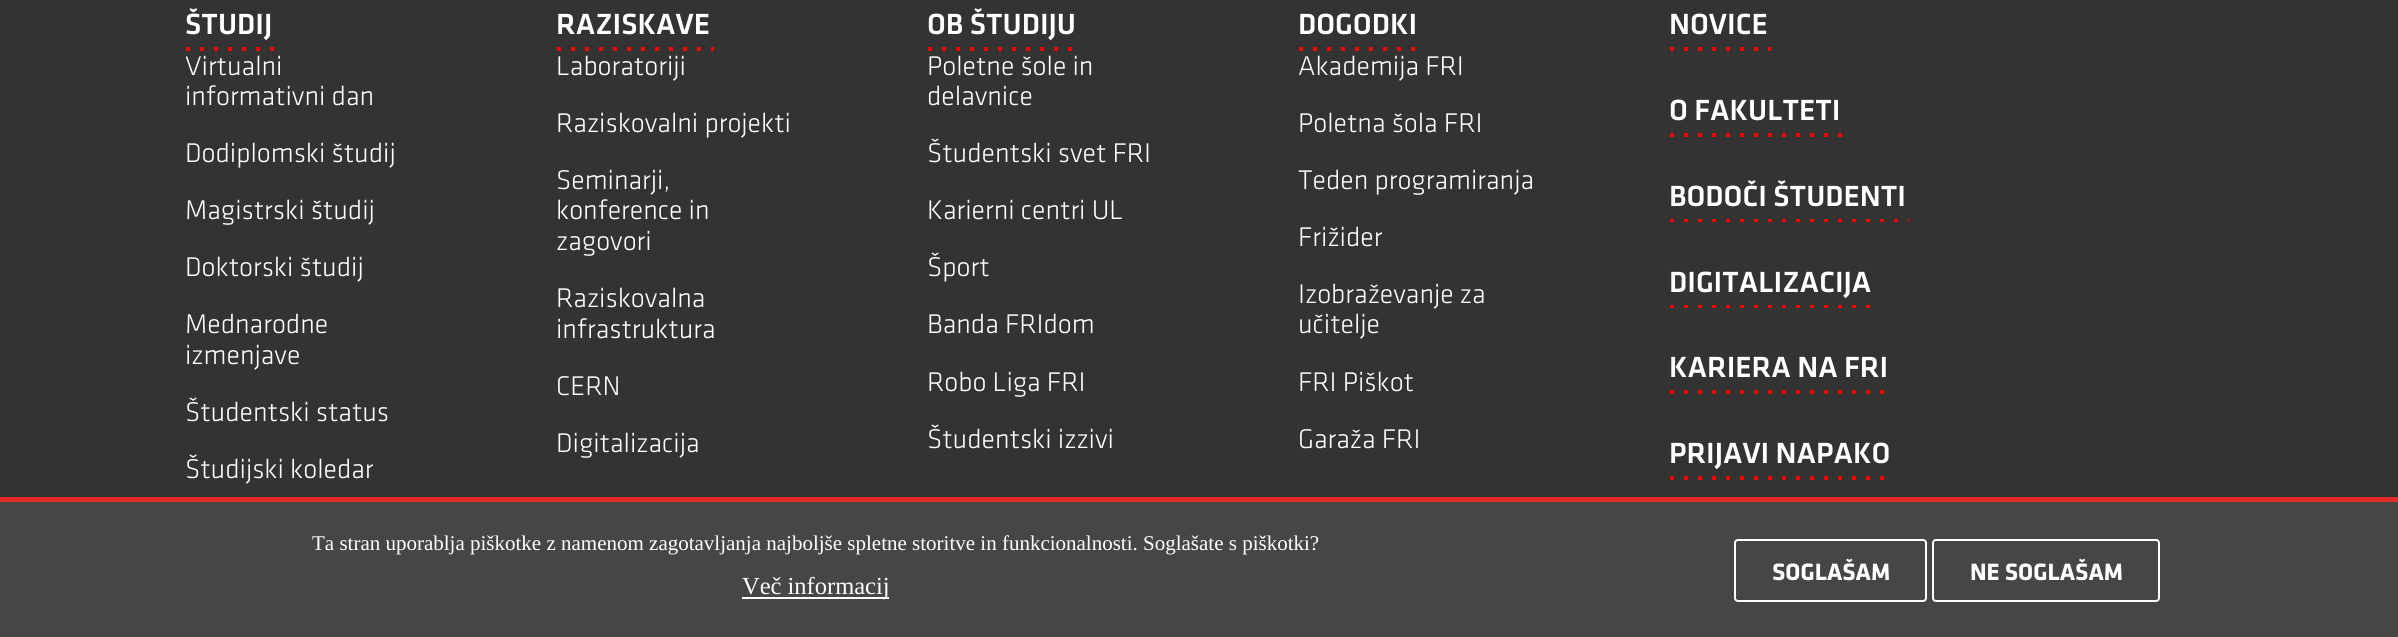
import math
import cairo

surface = cairo.ImageSurface(cairo.Format.RGB24, 2398, 637)
ctx = cairo.Context(surface)
options = cairo.FontOptions()
options.set_hint_metrics(cairo.HintMetrics.OFF)
options.set_hint_style(cairo.HintStyle.NONE)
ctx.set_font_options(options)
ctx.set_miter_limit(4)


def ink(r, g, b):
    ctx.set_source_rgb(r / 255, g / 255, b / 255)


def write(x, y, s, family, size, color, bold=False, italic=False):
    ctx.select_font_face(family, cairo.FontSlant.ITALIC if italic else cairo.FontSlant.NORMAL, cairo.FontWeight.BOLD if bold else cairo.FontWeight.NORMAL)
    ctx.set_font_size(size)
    ink(*color)
    ctx.move_to(x, y)
    ctx.show_text(s)


def block(x, y, w, h, *color):
    ink(*color)
    ctx.rectangle(x, y, w, h)
    ctx.fill()


def round_path(x, y, w, h, r):
    ctx.new_sub_path()
    for i, (u, v) in enumerate([(x + w - r, y + h - r), (x + r, y + h - r), (x + r, y + r), (x + w - r, y + r)]):
        ctx.arc(u, v, r, i * math.pi / 2, (i + 1) * math.pi / 2)
    ctx.close_path()


s1 = dict(family="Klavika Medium", size=30.25, color=(255, 255, 255))
s2 = dict(family="Klavika Light", size=28, color=(255, 255, 255))
s3 = dict(family="Liberation Serif", size=21, color=(255, 255, 255))
s4 = dict(family="Liberation Serif", size=24.5, color=(255, 255, 255))
s5 = dict(family="Klavika", size=24.5, color=(255, 255, 255), bold=True)

ink(51, 51, 51)
ctx.paint()
block(186, 47, 4, 4, 255, 0, 0)
block(200, 47, 4, 4, 255, 0, 0)
block(214, 47, 4, 4, 255, 0, 0)
block(228, 47, 4, 4, 255, 0, 0)
block(242, 47, 4, 4, 255, 0, 0)
block(256, 47, 4, 4, 255, 0, 0)
block(270, 47, 4, 4, 255, 0, 0)
write(185, 34, "ŠTUDIJ", **s1)
ctx.save()
ctx.rectangle(186, 0, 2030, 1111)
ctx.clip()
write(185, 75, "Virtualni", **s2)
ctx.restore()
write(185, 105, "informativni dan", **s2)
write(185, 162, "Dodiplomski študij", **s2)
write(185, 219, "Magistrski študij", **s2)
write(185, 276, "Doktorski študij", **s2)
write(185, 333, "Mednarodne", **s2)
write(185, 364, "izmenjave", **s2)
write(185, 421, "Študentski status", **s2)
write(185, 478, "Študijski koledar", **s2)
block(557, 47, 4, 4, 255, 0, 0)
block(571, 47, 4, 4, 255, 0, 0)
block(585, 47, 4, 4, 255, 0, 0)
block(599, 47, 4, 4, 255, 0, 0)
block(613, 47, 4, 4, 255, 0, 0)
block(627, 47, 4, 4, 255, 0, 0)
block(641, 47, 4, 4, 255, 0, 0)
block(655, 47, 4, 4, 255, 0, 0)
block(669, 47, 4, 4, 255, 0, 0)
block(683, 47, 4, 4, 255, 0, 0)
block(697, 47, 4, 4, 255, 0, 0)
block(711, 47, 3, 4, 255, 0, 0)
write(556, 34, "RAZISKAVE", **s1)
write(556, 75, "Laboratoriji", **s2)
write(556, 132, "Raziskovalni projekti", **s2)
write(556, 189, "Seminarji,", **s2)
write(556, 219, "konference in", **s2)
write(556, 250, "zagovori", **s2)
write(556, 307, "Raziskovalna", **s2)
write(556, 338, "infrastruktura", **s2)
write(556, 395, "CERN", **s2)
write(556, 452, "Digitalizacija", **s2)
block(928, 47, 4, 4, 255, 0, 0)
block(942, 47, 4, 4, 255, 0, 0)
block(956, 47, 4, 4, 255, 0, 0)
block(970, 47, 4, 4, 255, 0, 0)
block(984, 47, 4, 4, 255, 0, 0)
block(998, 47, 4, 4, 255, 0, 0)
block(1012, 47, 4, 4, 255, 0, 0)
block(1026, 47, 4, 4, 255, 0, 0)
block(1040, 47, 4, 4, 255, 0, 0)
block(1054, 47, 4, 4, 255, 0, 0)
block(1068, 47, 4, 4, 255, 0, 0)
write(927, 34, "OB ŠTUDIJU", **s1)
write(927, 75, "Poletne šole in", **s2)
write(927, 105, "delavnice", **s2)
write(927, 162, "Študentski svet FRI", **s2)
write(927, 219, "Karierni centri UL", **s2)
write(927, 276, "Šport", **s2)
write(927, 333, "Banda FRIdom", **s2)
write(927, 391, "Robo Liga FRI", **s2)
write(927, 448, "Študentski izzivi", **s2)
block(1299, 47, 4, 4, 255, 0, 0)
block(1313, 47, 4, 4, 255, 0, 0)
block(1327, 47, 4, 4, 255, 0, 0)
block(1341, 47, 4, 4, 255, 0, 0)
block(1355, 47, 4, 4, 255, 0, 0)
block(1369, 47, 4, 4, 255, 0, 0)
block(1383, 47, 4, 4, 255, 0, 0)
block(1397, 47, 4, 4, 255, 0, 0)
block(1411, 47, 4, 4, 255, 0, 0)
write(1298, 34, "DOGODKI", **s1)
write(1298, 75, "Akademija FRI", **s2)
write(1298, 132, "Poletna šola FRI", **s2)
write(1298, 189, "Teden programiranja", **s2)
write(1298, 246, "Frižider", **s2)
write(1298, 303, "Izobraževanje za", **s2)
write(1298, 333, "učitelje", **s2)
write(1298, 391, "FRI Piškot", **s2)
write(1298, 448, "Garaža FRI", **s2)
block(1670, 47, 4, 4, 255, 0, 0)
block(1684, 47, 4, 4, 255, 0, 0)
block(1698, 47, 4, 4, 255, 0, 0)
block(1712, 47, 4, 4, 255, 0, 0)
block(1726, 47, 4, 4, 255, 0, 0)
block(1740, 47, 4, 4, 255, 0, 0)
block(1754, 47, 4, 4, 255, 0, 0)
block(1768, 47, 3, 4, 255, 0, 0)
write(1669, 34, "NOVICE", **s1)
block(1670, 133, 4, 4, 255, 0, 0)
block(1684, 133, 4, 4, 255, 0, 0)
block(1698, 133, 4, 4, 255, 0, 0)
block(1712, 133, 4, 4, 255, 0, 0)
block(1726, 133, 4, 4, 255, 0, 0)
block(1740, 133, 4, 4, 255, 0, 0)
block(1754, 133, 4, 4, 255, 0, 0)
block(1768, 133, 4, 4, 255, 0, 0)
block(1782, 133, 4, 4, 255, 0, 0)
block(1796, 133, 4, 4, 255, 0, 0)
block(1810, 133, 4, 4, 255, 0, 0)
block(1824, 133, 4, 4, 255, 0, 0)
block(1838, 133, 4, 4, 255, 0, 0)
write(1669, 120, "O FAKULTETI", **s1)
block(1670, 219, 4, 3, 255, 0, 0)
block(1684, 219, 4, 3, 255, 0, 0)
block(1698, 219, 4, 3, 255, 0, 0)
block(1712, 219, 4, 3, 255, 0, 0)
block(1726, 219, 4, 3, 255, 0, 0)
block(1740, 219, 4, 3, 255, 0, 0)
block(1754, 219, 4, 3, 255, 0, 0)
block(1768, 219, 4, 3, 255, 0, 0)
block(1782, 219, 4, 3, 255, 0, 0)
block(1796, 219, 4, 3, 255, 0, 0)
block(1810, 219, 4, 3, 255, 0, 0)
block(1824, 219, 4, 3, 255, 0, 0)
block(1838, 219, 4, 3, 255, 0, 0)
block(1852, 219, 4, 3, 255, 0, 0)
block(1866, 219, 4, 3, 255, 0, 0)
block(1880, 219, 4, 3, 255, 0, 0)
block(1894, 219, 4, 3, 255, 0, 0)
block(1908, 219, 1, 3, 255, 0, 0)
write(1669, 206, "BODOČI ŠTUDENTI", **s1)
block(1670, 305, 4, 3, 255, 0, 0)
block(1684, 305, 4, 3, 255, 0, 0)
block(1698, 305, 4, 3, 255, 0, 0)
block(1712, 305, 4, 3, 255, 0, 0)
block(1726, 305, 4, 3, 255, 0, 0)
block(1740, 305, 4, 3, 255, 0, 0)
block(1754, 305, 4, 3, 255, 0, 0)
block(1768, 305, 4, 3, 255, 0, 0)
block(1782, 305, 4, 3, 255, 0, 0)
block(1796, 305, 4, 3, 255, 0, 0)
block(1810, 305, 4, 3, 255, 0, 0)
block(1824, 305, 4, 3, 255, 0, 0)
block(1838, 305, 4, 3, 255, 0, 0)
block(1852, 305, 4, 3, 255, 0, 0)
block(1866, 305, 4, 3, 255, 0, 0)
write(1669, 292, "DIGITALIZACIJA", **s1)
block(1670, 390, 4, 4, 255, 0, 0)
block(1684, 390, 4, 4, 255, 0, 0)
block(1698, 390, 4, 4, 255, 0, 0)
block(1712, 390, 4, 4, 255, 0, 0)
block(1726, 390, 4, 4, 255, 0, 0)
block(1740, 390, 4, 4, 255, 0, 0)
block(1754, 390, 4, 4, 255, 0, 0)
block(1768, 390, 4, 4, 255, 0, 0)
block(1782, 390, 4, 4, 255, 0, 0)
block(1796, 390, 4, 4, 255, 0, 0)
block(1810, 390, 4, 4, 255, 0, 0)
block(1824, 390, 4, 4, 255, 0, 0)
block(1838, 390, 4, 4, 255, 0, 0)
block(1852, 390, 4, 4, 255, 0, 0)
block(1866, 390, 4, 4, 255, 0, 0)
block(1880, 390, 4, 4, 255, 0, 0)
write(1669, 377, "KARIERA NA FRI", **s1)
block(1670, 476, 4, 4, 255, 0, 0)
block(1684, 476, 4, 4, 255, 0, 0)
block(1698, 476, 4, 4, 255, 0, 0)
block(1712, 476, 4, 4, 255, 0, 0)
block(1726, 476, 4, 4, 255, 0, 0)
block(1740, 476, 4, 4, 255, 0, 0)
block(1754, 476, 4, 4, 255, 0, 0)
block(1768, 476, 4, 4, 255, 0, 0)
block(1782, 476, 4, 4, 255, 0, 0)
block(1796, 476, 4, 4, 255, 0, 0)
block(1810, 476, 4, 4, 255, 0, 0)
block(1824, 476, 4, 4, 255, 0, 0)
block(1838, 476, 4, 4, 255, 0, 0)
block(1852, 476, 4, 4, 255, 0, 0)
block(1866, 476, 4, 4, 255, 0, 0)
block(1880, 476, 4, 4, 255, 0, 0)
write(1669, 463, "PRIJAVI NAPAKO", **s1)
block(0, 502, 2398, 135, 70, 70, 70)
block(0, 497, 2398, 5, 225, 42, 38)
write(312, 550, "Ta stran uporablja piškotke z namenom zagotavljanja najboljše spletne storitve in funkcionalnosti. Soglašate s piškotki?", **s3)
block(742, 597, 147, 2, 255, 255, 255)
write(742, 594, "Več informacij", **s4)
round_path(1735, 540, 191, 61, 3)
ctx.stroke()
write(1772, 580, "SOGLAŠAM", **s5)
round_path(1933, 540, 226, 61, 3)
ctx.stroke()
write(1970, 580, "NE SOGLAŠAM", **s5)
surface.write_to_png("screenshot.png")
